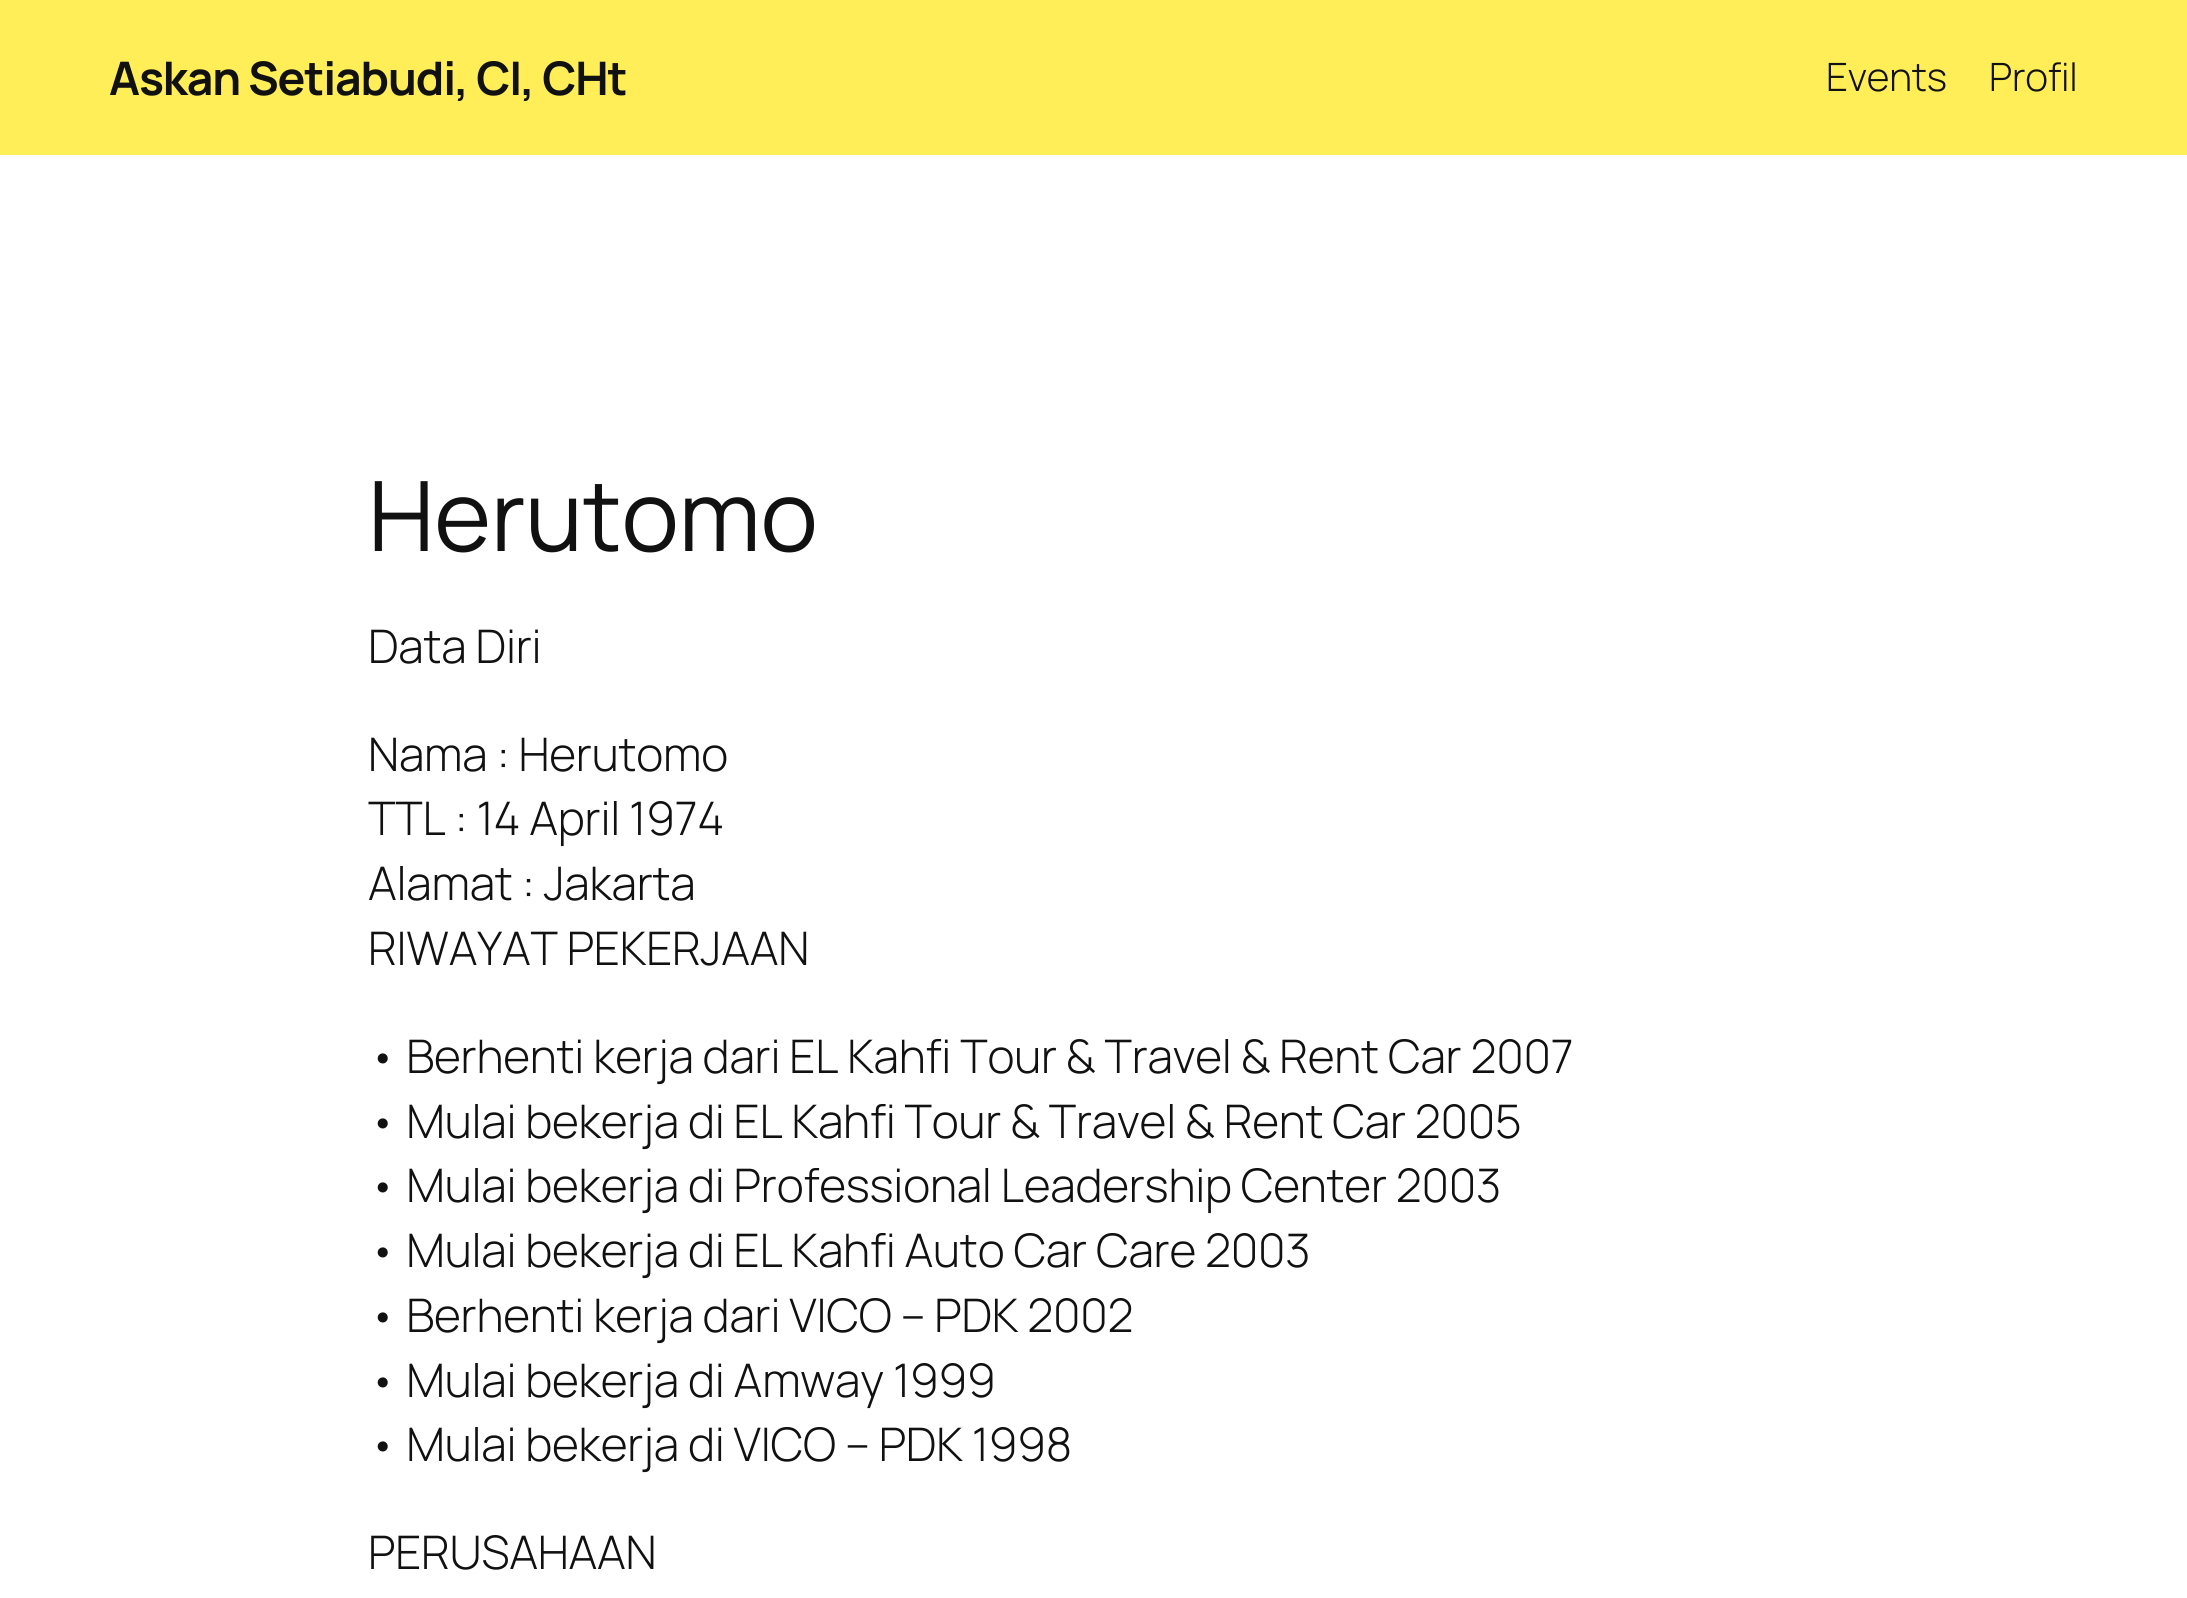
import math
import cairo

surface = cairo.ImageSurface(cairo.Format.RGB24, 2187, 1598)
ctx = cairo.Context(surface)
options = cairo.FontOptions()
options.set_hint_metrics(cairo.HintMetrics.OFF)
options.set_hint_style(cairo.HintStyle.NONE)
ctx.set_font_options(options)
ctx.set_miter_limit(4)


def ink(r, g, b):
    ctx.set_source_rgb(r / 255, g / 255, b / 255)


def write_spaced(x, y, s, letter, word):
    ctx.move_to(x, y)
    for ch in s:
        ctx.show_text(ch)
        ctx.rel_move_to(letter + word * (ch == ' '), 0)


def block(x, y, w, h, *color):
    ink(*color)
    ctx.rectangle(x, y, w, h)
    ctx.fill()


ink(255, 255, 255)
ctx.paint()
block(0, 0, 2187, 155, 255, 238, 88)
ctx.select_font_face("Manrope", cairo.FontSlant.NORMAL, cairo.FontWeight.BOLD)
ctx.set_font_size(46.25)
ink(17, 17, 17)
write_spaced(109, 95, "Askan Setiabudi, CI, CHt", -1.1, 0)
ctx.select_font_face("Manrope Light")
ctx.set_font_size(39)
write_spaced(1826, 91, "Events", -0.23, 0)
write_spaced(1989, 91, "Profil", -0.23, 0)
ctx.select_font_face("Manrope")
ctx.set_font_size(97)
write_spaced(368, 551, "Herutomo", -0.23, 0)
ctx.select_font_face("Manrope Light")
ctx.set_font_size(46.25)
write_spaced(368, 663, "Data Diri", -0.23, 0)
write_spaced(368, 771, "Nama : Herutomo", -0.23, 0)
write_spaced(368, 835, "TTL : 14 April 1974", -0.23, 0)
write_spaced(368, 900, "Alamat : Jakarta", -0.23, 0)
write_spaced(368, 965, "RIWAYAT PEKERJAAN", -0.23, 0)
write_spaced(368, 1073, "• Berhenti kerja dari EL Kahfi Tour & Travel & Rent Car 2007", -0.23, 0)
write_spaced(368, 1138, "• Mulai bekerja di EL Kahfi Tour & Travel & Rent Car 2005", -0.23, 0)
write_spaced(368, 1202, "• Mulai bekerja di Professional Leadership Center 2003", -0.23, 0)
write_spaced(368, 1267, "• Mulai bekerja di EL Kahfi Auto Car Care 2003", -0.23, 0)
write_spaced(368, 1332, "• Berhenti kerja dari VICO – PDK 2002", -0.23, 0)
write_spaced(368, 1397, "• Mulai bekerja di Amway 1999", -0.23, 0)
write_spaced(368, 1461, "• Mulai bekerja di VICO – PDK 1998", -0.23, 0)
write_spaced(368, 1569, "PERUSAHAAN", -0.23, 0)
surface.write_to_png("screenshot.png")
